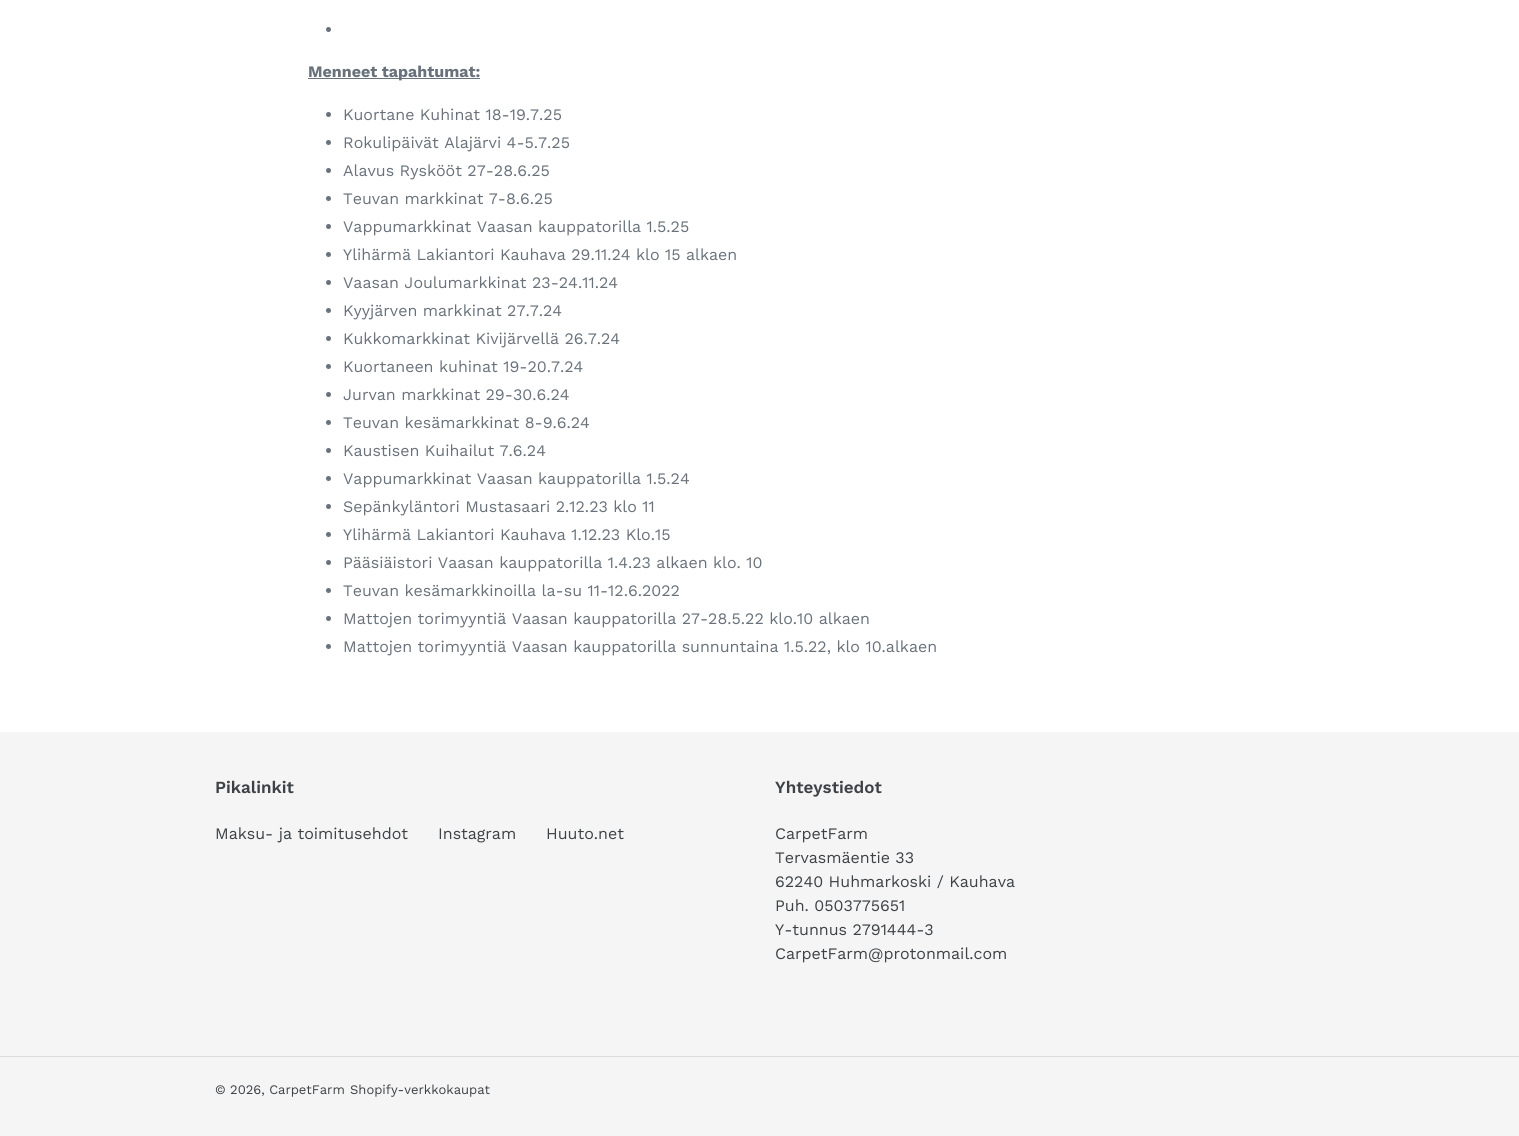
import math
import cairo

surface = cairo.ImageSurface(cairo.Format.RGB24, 1519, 1136)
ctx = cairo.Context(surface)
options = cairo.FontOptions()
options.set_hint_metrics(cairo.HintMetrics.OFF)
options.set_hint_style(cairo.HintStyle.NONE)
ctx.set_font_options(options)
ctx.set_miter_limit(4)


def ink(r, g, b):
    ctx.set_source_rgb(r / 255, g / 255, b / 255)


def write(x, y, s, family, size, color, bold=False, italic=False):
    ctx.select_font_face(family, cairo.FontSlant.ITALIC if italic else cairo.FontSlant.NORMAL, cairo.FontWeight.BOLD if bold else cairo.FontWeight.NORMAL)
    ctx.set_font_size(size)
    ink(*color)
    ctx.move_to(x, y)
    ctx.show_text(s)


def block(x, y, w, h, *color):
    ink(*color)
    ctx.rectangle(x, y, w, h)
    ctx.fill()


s1 = dict(family="Work Sans", size=16, color=(105, 114, 123), bold=True)
s2 = dict(family="Work Sans", size=16, color=(105, 114, 123))
s3 = dict(family="Work Sans SemiBold", size=17, color=(61, 66, 70))
s4 = dict(family="Work Sans", size=16, color=(61, 66, 70))
s5 = dict(family="Work Sans", size=13, color=(61, 66, 70))

ink(255, 255, 255)
ctx.paint()
ink(105, 114, 123)
ctx.arc(328.5, 29.5, 2.5, 0, 2 * math.pi)
ctx.fill()
block(308, 78, 172, 1, 105, 114, 123)
write(308, 77, "Menneet tapahtumat:", **s1)
ctx.new_path()
ctx.arc(328.5, 114.5, 2.5, 0, 2 * math.pi)
ctx.fill()
write(343, 120, "Kuortane Kuhinat 18-19.7.25", **s2)
ctx.new_path()
ctx.arc(328.5, 142.5, 2.5, 0, 2 * math.pi)
ctx.fill()
write(343, 148, "Rokulipäivät Alajärvi 4-5.7.25", **s2)
ctx.new_path()
ctx.arc(328.5, 170.5, 2.5, 0, 2 * math.pi)
ctx.fill()
write(343, 176, "Alavus Ryskööt 27-28.6.25", **s2)
ctx.new_path()
ctx.arc(328.5, 198.5, 2.5, 0, 2 * math.pi)
ctx.fill()
write(343, 204, "Teuvan markkinat 7-8.6.25", **s2)
ctx.new_path()
ctx.arc(328.5, 226.5, 2.5, 0, 2 * math.pi)
ctx.fill()
write(343, 232, "Vappumarkkinat Vaasan kauppatorilla 1.5.25", **s2)
ctx.new_path()
ctx.arc(328.5, 254.5, 2.5, 0, 2 * math.pi)
ctx.fill()
write(343, 260, "Ylihärmä Lakiantori Kauhava 29.11.24 klo 15 alkaen", **s2)
ctx.new_path()
ctx.arc(328.5, 282.5, 2.5, 0, 2 * math.pi)
ctx.fill()
write(343, 288, "Vaasan Joulumarkkinat 23-24.11.24", **s2)
ctx.new_path()
ctx.arc(328.5, 310.5, 2.5, 0, 2 * math.pi)
ctx.fill()
write(343, 316, "Kyyjärven markkinat 27.7.24", **s2)
ctx.new_path()
ctx.arc(328.5, 338.5, 2.5, 0, 2 * math.pi)
ctx.fill()
write(343, 344, "Kukkomarkkinat Kivijärvellä 26.7.24", **s2)
ctx.new_path()
ctx.arc(328.5, 366.5, 2.5, 0, 2 * math.pi)
ctx.fill()
write(343, 372, "Kuortaneen kuhinat 19-20.7.24", **s2)
ctx.new_path()
ctx.arc(328.5, 394.5, 2.5, 0, 2 * math.pi)
ctx.fill()
write(343, 400, "Jurvan markkinat 29-30.6.24", **s2)
ctx.new_path()
ctx.arc(328.5, 422.5, 2.5, 0, 2 * math.pi)
ctx.fill()
write(343, 428, "Teuvan kesämarkkinat 8-9.6.24", **s2)
ctx.new_path()
ctx.arc(328.5, 450.5, 2.5, 0, 2 * math.pi)
ctx.fill()
write(343, 456, "Kaustisen Kuihailut 7.6.24", **s2)
ctx.new_path()
ctx.arc(328.5, 478.5, 2.5, 0, 2 * math.pi)
ctx.fill()
write(343, 484, "Vappumarkkinat Vaasan kauppatorilla 1.5.24", **s2)
ctx.new_path()
ctx.arc(328.5, 506.5, 2.5, 0, 2 * math.pi)
ctx.fill()
write(343, 512, "Sepänkyläntori Mustasaari 2.12.23 klo 11", **s2)
ctx.new_path()
ctx.arc(328.5, 534.5, 2.5, 0, 2 * math.pi)
ctx.fill()
write(343, 540, "Ylihärmä Lakiantori Kauhava 1.12.23 Klo.15", **s2)
ctx.new_path()
ctx.arc(328.5, 562.5, 2.5, 0, 2 * math.pi)
ctx.fill()
write(343, 568, "Pääsiäistori Vaasan kauppatorilla 1.4.23 alkaen klo. 10", **s2)
ctx.new_path()
ctx.arc(328.5, 590.5, 2.5, 0, 2 * math.pi)
ctx.fill()
write(343, 596, "Teuvan kesämarkkinoilla la-su 11-12.6.2022", **s2)
ctx.new_path()
ctx.arc(328.5, 618.5, 2.5, 0, 2 * math.pi)
ctx.fill()
write(343, 624, "Mattojen torimyyntiä Vaasan kauppatorilla 27-28.5.22 klo.10 alkaen", **s2)
ctx.new_path()
ctx.arc(328.5, 646.5, 2.5, 0, 2 * math.pi)
ctx.fill()
write(343, 652, "Mattojen torimyyntiä Vaasan kauppatorilla sunnuntaina 1.5.22, klo 10.alkaen", **s2)
block(0, 732, 1519, 404, 245, 245, 245)
write(215, 793, "Pikalinkit", **s3)
write(215, 839, "Maksu- ja toimitusehdot", **s4)
write(438, 839, "Instagram", **s4)
write(546, 839, "Huuto.net", **s4)
write(775, 793, "Yhteystiedot", **s3)
write(775, 839, "CarpetFarm", **s4)
write(775, 863, "Tervasmäentie 33", **s4)
write(775, 887, "62240 Huhmarkoski / Kauhava", **s4)
write(775, 911, "Puh. 0503775651", **s4)
write(775, 935, "Y-tunnus 2791444-3", **s4)
write(775, 959, "CarpetFarm@protonmail.com", **s4)
block(0, 1056, 1519, 1, 220, 220, 220)
write(215, 1094, "© 2026, CarpetFarm", **s5)
write(350, 1094, "Shopify-verkkokaupat", **s5)
surface.write_to_png("screenshot.png")
